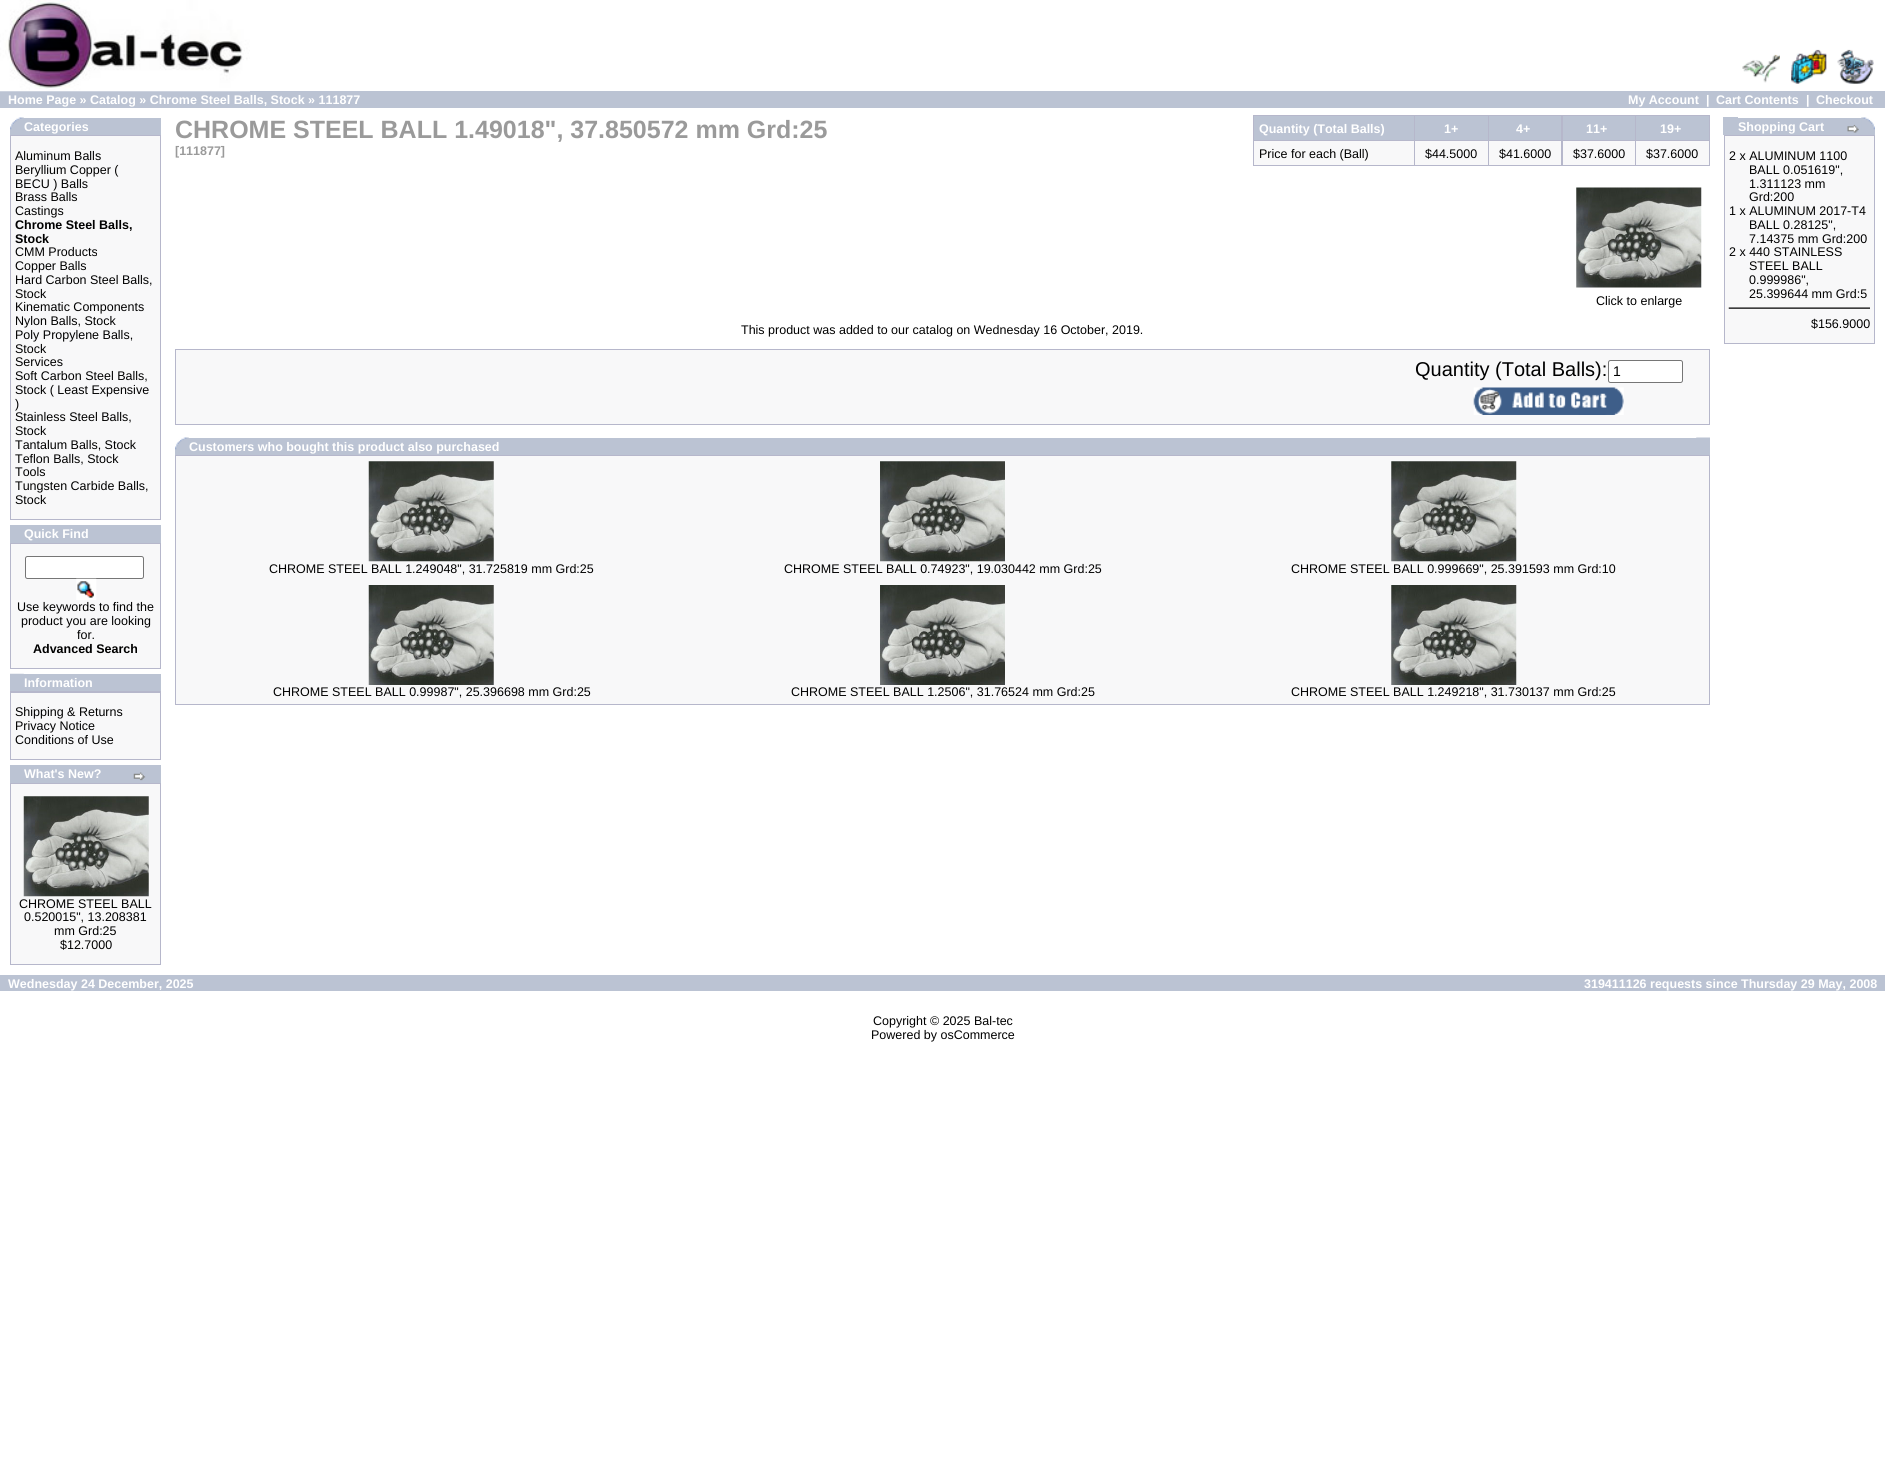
import math
import cairo

surface = cairo.ImageSurface(cairo.Format.RGB24, 1885, 1460)
ctx = cairo.Context(surface)
options = cairo.FontOptions()
options.set_hint_metrics(cairo.HintMetrics.OFF)
options.set_hint_style(cairo.HintStyle.NONE)
ctx.set_font_options(options)
ctx.set_miter_limit(4)


def ink(r, g, b):
    ctx.set_source_rgb(r / 255, g / 255, b / 255)


def write(x, y, s, family, size, color, bold=False, italic=False):
    ctx.select_font_face(family, cairo.FontSlant.ITALIC if italic else cairo.FontSlant.NORMAL, cairo.FontWeight.BOLD if bold else cairo.FontWeight.NORMAL)
    ctx.set_font_size(size)
    ink(*color)
    ctx.move_to(x, y)
    ctx.show_text(s)


def block(x, y, w, h, *color):
    ink(*color)
    ctx.rectangle(x, y, w, h)
    ctx.fill()


def round_path(x, y, w, h, r):
    ctx.new_sub_path()
    for i, (u, v) in enumerate([(x + w - r, y + h - r), (x + r, y + h - r), (x + r, y + r), (x + w - r, y + r)]):
        ctx.arc(u, v, r, i * math.pi / 2, (i + 1) * math.pi / 2)
    ctx.close_path()


def paste(path, x, y, w, h):
    ctx.save()
    ctx.set_source_surface(cairo.ImageSurface.create_from_png(path), x, y)
    ctx.rectangle(x, y, w, h)
    ctx.fill()
    ctx.restore()


s1 = dict(family="Liberation Sans", size=12.5, color=(255, 255, 255), bold=True)
s2 = dict(family="Liberation Sans", size=12.5, color=(0, 0, 0))
s3 = dict(family="Liberation Sans", size=12.5, color=(0, 0, 0), bold=True)
s4 = dict(family="Liberation Sans", size=25, color=(154, 154, 154), bold=True)
s5 = dict(family="Liberation Sans", size=12.5, color=(154, 154, 154), bold=True)
s6 = dict(family="Liberation Sans", size=20, color=(0, 0, 0))
s7 = dict(family="Liberation Sans", size=14, color=(0, 0, 0))

ink(255, 255, 255)
ctx.paint()
block(0, 91, 1885, 17, 187, 195, 211)
paste("pic1.png", 0, 0, 250, 92)
paste("pic2.png", 1742, 54, 38, 29)
paste("pic3.png", 1791, 49, 36, 35)
paste("pic4.png", 1837, 49, 37, 35)
write(8, 104, "Home Page » Catalog » Chrome Steel Balls, Stock » 111877", **s1)
write(1628, 104, "My Account", **s1)
write(1706, 104, "|", **s1)
write(1716, 104, "Cart Contents", **s1)
write(1806, 104, "|", **s1)
write(1816, 104, "Checkout", **s1)
block(10, 118, 151, 17, 187, 195, 211)
paste("pic5.png", 10, 117, 14, 13)
write(24, 131, "Categories", **s1)
block(10, 135, 151, 385, 182, 183, 203)
block(11, 136, 149, 383, 248, 248, 249)
write(15, 160, "Aluminum Balls", **s2)
write(15, 174, "Beryllium Copper (", **s2)
write(15, 188, "BECU ) Balls", **s2)
write(15, 201, "Brass Balls", **s2)
write(15, 215, "Castings", **s2)
write(15, 229, "Chrome Steel Balls,", **s3)
write(15, 243, "Stock", **s3)
write(15, 256, "CMM Products", **s2)
write(15, 270, "Copper Balls", **s2)
write(15, 284, "Hard Carbon Steel Balls,", **s2)
write(15, 298, "Stock", **s2)
write(15, 311, "Kinematic Components", **s2)
write(15, 325, "Nylon Balls, Stock", **s2)
write(15, 339, "Poly Propylene Balls,", **s2)
write(15, 353, "Stock", **s2)
write(15, 366, "Services", **s2)
write(15, 380, "Soft Carbon Steel Balls,", **s2)
write(15, 394, "Stock ( Least Expensive", **s2)
write(15, 408, ")", **s2)
write(15, 421, "Stainless Steel Balls,", **s2)
write(15, 435, "Stock", **s2)
write(15, 449, "Tantalum Balls, Stock", **s2)
write(15, 463, "Teflon Balls, Stock", **s2)
write(15, 476, "Tools", **s2)
write(15, 490, "Tungsten Carbide Balls,", **s2)
write(15, 504, "Stock", **s2)
block(10, 525, 151, 18, 187, 195, 211)
write(24, 538, "Quick Find", **s1)
block(10, 543, 151, 126, 182, 183, 203)
block(11, 544, 149, 124, 248, 248, 249)
ink(255, 255, 255)
round_path(25.5, 556.5, 118, 22, 2)
ctx.fill_preserve()
ink(118, 118, 118)
ctx.set_line_width(1)
ctx.stroke()
paste("pic6.png", 76, 578, 21, 22)
write(17, 611, "Use keywords to find the", **s2)
write(21, 625, "product you are looking", **s2)
write(77, 639, "for.", **s2)
write(33, 653, "Advanced Search", **s3)
block(10, 674, 151, 17, 187, 195, 211)
paste("pic7.png", 10, 673, 14, 1)
write(24, 687, "Information", **s1)
block(10, 691, 151, 69, 182, 183, 203)
block(11, 693, 149, 66, 248, 248, 249)
write(15, 716, "Shipping & Returns", **s2)
write(15, 730, "Privacy Notice", **s2)
write(15, 744, "Conditions of Use", **s2)
block(10, 765, 151, 18, 187, 195, 211)
write(24, 778, "What's New?", **s1)
paste("pic8.png", 133, 772, 13, 9)
block(10, 783, 151, 182, 182, 183, 203)
block(11, 784, 149, 180, 248, 248, 249)
paste("pic9.png", 23, 796, 126, 101)
write(19, 908, "CHROME STEEL BALL", **s2)
write(24, 921, "0.520015\", 13.208381", **s2)
write(54, 935, "mm Grd:25", **s2)
write(60, 949, "$12.7000", **s2)
write(175, 138, "CHROME STEEL BALL 1.49018\", 37.850572 mm Grd:25", **s4)
write(175, 155, "[111877]", **s5)
block(1253, 115, 457, 51, 182, 183, 203)
block(1254, 116, 160, 24, 187, 195, 211)
write(1259, 133, "Quantity (Total Balls)", **s1)
block(1415, 116, 73, 24, 187, 195, 211)
write(1444, 133, "1+", **s1)
block(1489, 116, 72, 24, 187, 195, 211)
write(1516, 133, "4+", **s1)
block(1563, 116, 72, 24, 187, 195, 211)
write(1586, 133, "11+", **s1)
block(1636, 116, 73, 24, 187, 195, 211)
write(1660, 133, "19+", **s1)
block(1254, 141, 160, 24, 248, 248, 249)
write(1259, 158, "Price for each (Ball)", **s2)
block(1415, 141, 73, 24, 248, 248, 249)
write(1425, 158, "$44.5000", **s2)
block(1489, 141, 72, 24, 248, 248, 249)
write(1499, 158, "$41.6000", **s2)
block(1563, 141, 72, 24, 248, 248, 249)
write(1573, 158, "$37.6000", **s2)
block(1636, 141, 73, 24, 248, 248, 249)
write(1646, 158, "$37.6000", **s2)
paste("pic10.png", 1576, 187, 126, 101)
write(1596, 305, "Click to enlarge", **s2)
write(741, 334, "This product was added to our catalog on Wednesday 16 October, 2019.", **s2)
block(175, 349, 1535, 76, 182, 183, 203)
block(176, 350, 1533, 74, 248, 248, 249)
write(1415, 376, "Quantity (Total Balls):", **s6)
ink(255, 255, 255)
round_path(1608.5, 360.5, 74, 22, 2)
ctx.fill_preserve()
ink(118, 118, 118)
ctx.stroke()
write(1613, 376, "1", **s7)
paste("pic11.png", 1473, 387, 151, 28)
block(175, 438, 1535, 17, 187, 195, 211)
paste("pic5.png", 175, 437, 14, 13)
paste("pic12.png", 1696, 437, 14, 1)
write(189, 451, "Customers who bought this product also purchased", **s1)
block(175, 455, 1535, 250, 182, 183, 203)
block(176, 456, 1533, 248, 248, 248, 249)
paste("pic13.png", 368, 461, 126, 101)
write(269, 573, "CHROME STEEL BALL 1.249048\", 31.725819 mm Grd:25", **s2)
paste("pic14.png", 880, 461, 125, 101)
write(784, 573, "CHROME STEEL BALL 0.74923\", 19.030442 mm Grd:25", **s2)
paste("pic15.png", 1391, 461, 126, 101)
write(1291, 573, "CHROME STEEL BALL 0.999669\", 25.391593 mm Grd:10", **s2)
paste("pic16.png", 368, 585, 126, 100)
write(273, 696, "CHROME STEEL BALL 0.99987\", 25.396698 mm Grd:25", **s2)
paste("pic17.png", 880, 585, 125, 100)
write(791, 696, "CHROME STEEL BALL 1.2506\", 31.76524 mm Grd:25", **s2)
paste("pic18.png", 1391, 585, 126, 100)
write(1291, 696, "CHROME STEEL BALL 1.249218\", 31.730137 mm Grd:25", **s2)
block(1723, 117, 15, 18, 187, 195, 211)
block(1738, 118, 137, 17, 187, 195, 211)
write(1738, 131, "Shopping Cart", **s1)
paste("pic19.png", 1847, 124, 12, 9)
paste("pic20.png", 1861, 117, 14, 13)
block(1724, 135, 151, 209, 182, 183, 203)
block(1725, 136, 149, 207, 248, 248, 249)
write(1729, 160, "2 x ALUMINUM 1100", **s2)
write(1749, 174, "BALL 0.051619\",", **s2)
write(1749, 188, "1.311123 mm", **s2)
write(1749, 201, "Grd:200", **s2)
write(1729, 215, "1 x ALUMINUM 2017-T4", **s2)
write(1749, 229, "BALL 0.28125\",", **s2)
write(1749, 243, "7.14375 mm Grd:200", **s2)
write(1729, 256, "2 x 440 STAINLESS", **s2)
write(1749, 270, "STEEL BALL", **s2)
write(1749, 284, "0.999986\",", **s2)
write(1749, 298, "25.399644 mm Grd:5", **s2)
paste("pic21.png", 1728, 307, 142, 2)
write(1811, 328, "$156.9000", **s2)
block(0, 975, 1885, 16, 187, 195, 211)
write(8, 988, "Wednesday 24 December, 2025", **s1)
write(1584, 988, "319411126 requests since Thursday 29 May, 2008", **s1)
write(873, 1025, "Copyright © 2025 Bal-tec", **s2)
write(871, 1039, "Powered by osCommerce", **s2)
surface.write_to_png("screenshot.png")
